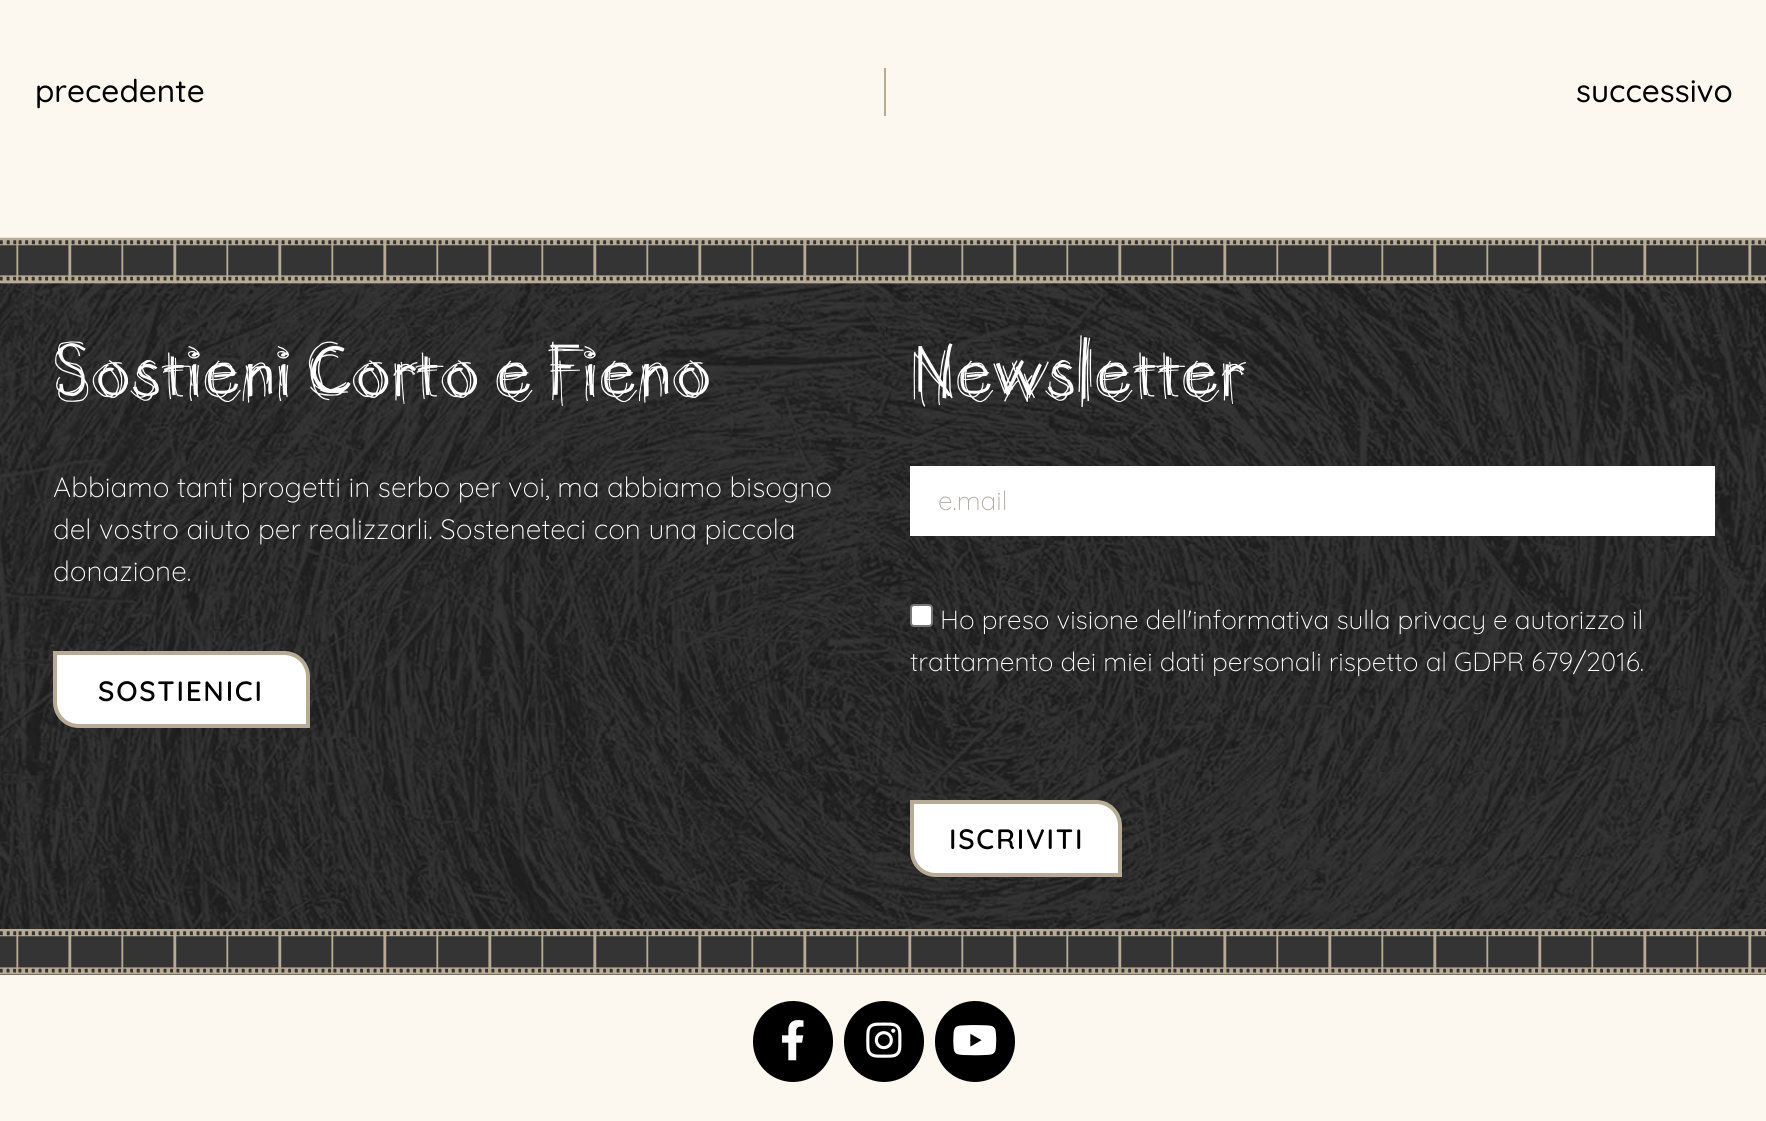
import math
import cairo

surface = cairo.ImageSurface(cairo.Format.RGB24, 1766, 1121)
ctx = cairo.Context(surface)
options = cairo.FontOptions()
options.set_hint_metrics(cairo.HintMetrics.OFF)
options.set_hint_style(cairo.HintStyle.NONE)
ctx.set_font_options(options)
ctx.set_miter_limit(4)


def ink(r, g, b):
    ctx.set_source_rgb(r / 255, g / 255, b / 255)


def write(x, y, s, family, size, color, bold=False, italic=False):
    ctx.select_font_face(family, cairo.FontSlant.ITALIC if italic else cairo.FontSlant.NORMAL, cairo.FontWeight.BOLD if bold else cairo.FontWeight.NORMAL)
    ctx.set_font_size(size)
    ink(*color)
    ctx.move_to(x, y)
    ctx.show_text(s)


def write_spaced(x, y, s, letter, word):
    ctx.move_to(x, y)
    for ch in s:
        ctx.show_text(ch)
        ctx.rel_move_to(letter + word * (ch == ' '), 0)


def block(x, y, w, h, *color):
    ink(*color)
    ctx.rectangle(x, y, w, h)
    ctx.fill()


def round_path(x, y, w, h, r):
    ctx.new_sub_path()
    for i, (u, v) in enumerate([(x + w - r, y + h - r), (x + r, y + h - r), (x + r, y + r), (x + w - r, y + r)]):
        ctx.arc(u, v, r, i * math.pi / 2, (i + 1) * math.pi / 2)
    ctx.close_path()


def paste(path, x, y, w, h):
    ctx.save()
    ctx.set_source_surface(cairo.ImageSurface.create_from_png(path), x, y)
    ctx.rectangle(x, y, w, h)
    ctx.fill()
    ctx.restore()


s1 = dict(family="Quicksand Medium", size=31.5, color=(0, 0, 0))
s2 = dict(family="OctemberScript", size=52.5, color=(255, 255, 255))
s3 = dict(family="Quicksand Light", size=28, color=(255, 255, 255))
s4 = dict(family="Quicksand Light", size=26.25, color=(179, 175, 168))
s5 = dict(family="Quicksand Light", size=26.25, color=(255, 255, 255))

ink(252, 247, 239)
ctx.paint()
write(35, 102, "precedente", **s1)
block(884, 68, 2, 48, 184, 171, 149)
write(1576, 102, "successivo", **s1)
paste("pic1.png", 0, 237, 1766, 47)
paste("pic2.png", 0, 283, 1766, 646)
write(53, 396, "Sostieni Corto e Fieno", **s2)
write(53, 497, "Abbiamo tanti progetti in serbo per voi, ma abbiamo bisogno", **s3)
write(53, 539, "del vostro aiuto per realizzarli. Sosteneteci con una piccola", **s3)
write(53, 581, "donazione.", **s3)
ctx.new_path()
ctx.move_to(55, 653)
ctx.line_to(284, 653)
ctx.curve_to(297.5, 653, 308, 663.5, 308, 677)
ctx.line_to(308, 726)
ctx.line_to(79, 726)
ctx.curve_to(65.5, 726, 55, 715.5, 55, 702)
ctx.close_path()
ctx.fill_preserve()
ink(184, 171, 149)
ctx.set_line_width(4)
ctx.stroke()
ctx.select_font_face("Quicksand SemiBold")
ink(0, 0, 0)
write_spaced(98, 701, "SOSTIENICI", 1.75, 0)
write(910, 396, "Newsletter", **s2)
block(910, 466, 805, 70, 255, 255, 255)
write(938, 510, "e.mail", **s4)
ink(255, 255, 255)
round_path(911, 605, 21, 21, 3)
ctx.fill_preserve()
ink(118, 118, 118)
ctx.set_line_width(2)
ctx.stroke()
write(940, 629, "Ho preso visione dell'informativa sulla privacy e autorizzo il", **s5)
write(910, 671, "trattamento dei miei dati personali rispetto al GDPR 679/2016.", **s5)
ctx.new_path()
ctx.move_to(912, 802)
ctx.line_to(1096, 802)
ctx.curve_to(1109.5, 802, 1120, 812.5, 1120, 826)
ctx.line_to(1120, 875)
ctx.line_to(936, 875)
ctx.curve_to(922.5, 875, 912, 864.5, 912, 851)
ctx.close_path()
ctx.fill_preserve()
ink(184, 171, 149)
ctx.set_line_width(4)
ctx.stroke()
ctx.select_font_face("Quicksand SemiBold")
ctx.set_font_size(28)
ink(0, 0, 0)
write_spaced(949, 849, "ISCRIVITI", 1.75, 0)
block(0, 974, 1766, 1, 50, 50, 50)
paste("pic3.png", 0, 929, 1766, 46)
ink(0, 0, 0)
round_path(753, 1001, 80, 81, 40)
ctx.fill()
paste("pic4.png", 782, 1020, 22, 41)
round_path(844, 1001, 80, 81, 40)
ctx.fill()
paste("pic5.png", 866, 1022, 36, 36)
round_path(935, 1001, 80, 81, 40)
ctx.fill()
paste("pic6.png", 953, 1025, 44, 31)
surface.write_to_png("screenshot.png")
